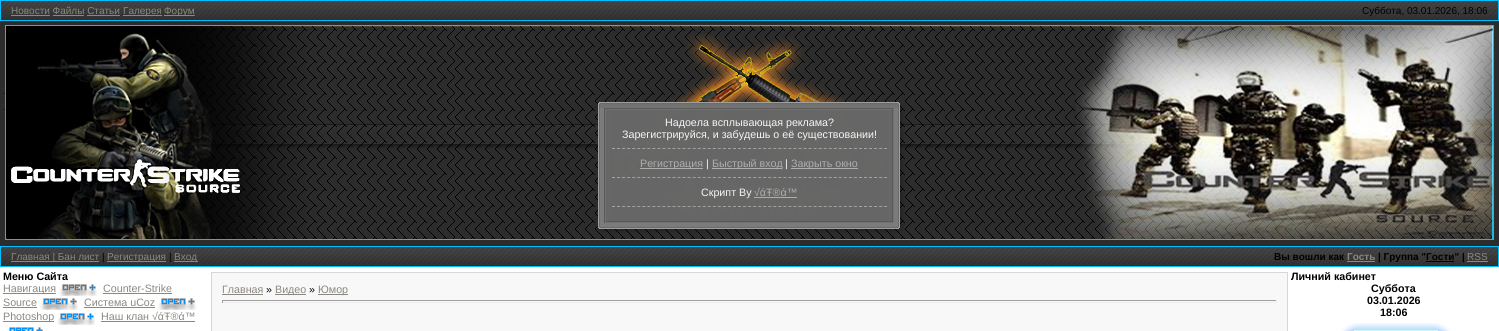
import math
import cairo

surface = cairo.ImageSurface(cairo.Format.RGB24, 1499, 331)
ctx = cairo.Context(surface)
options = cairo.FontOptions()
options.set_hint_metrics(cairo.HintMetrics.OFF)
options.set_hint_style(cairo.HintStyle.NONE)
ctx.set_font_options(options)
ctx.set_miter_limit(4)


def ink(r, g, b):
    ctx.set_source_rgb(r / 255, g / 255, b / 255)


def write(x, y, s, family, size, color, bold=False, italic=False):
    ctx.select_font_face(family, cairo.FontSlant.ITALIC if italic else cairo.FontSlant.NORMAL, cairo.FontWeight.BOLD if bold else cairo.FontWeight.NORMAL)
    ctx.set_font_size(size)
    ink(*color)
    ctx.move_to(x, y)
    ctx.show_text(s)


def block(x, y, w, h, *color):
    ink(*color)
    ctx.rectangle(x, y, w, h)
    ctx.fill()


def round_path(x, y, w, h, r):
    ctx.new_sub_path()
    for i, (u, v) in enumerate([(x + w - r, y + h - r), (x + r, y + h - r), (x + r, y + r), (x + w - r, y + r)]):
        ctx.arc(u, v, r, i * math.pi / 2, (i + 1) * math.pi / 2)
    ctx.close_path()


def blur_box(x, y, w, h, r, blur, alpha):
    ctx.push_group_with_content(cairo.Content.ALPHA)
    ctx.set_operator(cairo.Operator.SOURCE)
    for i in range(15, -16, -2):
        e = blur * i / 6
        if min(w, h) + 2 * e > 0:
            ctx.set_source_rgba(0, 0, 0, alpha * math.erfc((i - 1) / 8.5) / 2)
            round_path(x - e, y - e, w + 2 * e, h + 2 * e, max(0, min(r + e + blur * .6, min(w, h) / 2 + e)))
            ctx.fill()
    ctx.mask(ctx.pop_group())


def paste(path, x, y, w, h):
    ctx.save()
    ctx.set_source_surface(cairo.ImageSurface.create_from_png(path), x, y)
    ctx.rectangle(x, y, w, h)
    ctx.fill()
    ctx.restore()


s1 = dict(family="Liberation Sans", size=10, color=(139, 136, 129))
s2 = dict(family="Liberation Sans", size=10, color=(0, 0, 0))
s3 = dict(family="Liberation Sans", size=10.7, color=(246, 246, 246))
s4 = dict(family="Liberation Sans", size=10.7, color=(174, 174, 174))
s5 = dict(family="Liberation Sans", size=10, color=(0, 0, 0), bold=True)
s6 = dict(family="Liberation Sans", size=10, color=(139, 136, 129), bold=True)
s7 = dict(family="Liberation Sans", size=10.7, color=(0, 0, 0), bold=True)
s8 = dict(family="Liberation Sans", size=10.7, color=(139, 136, 129))
s9 = dict(family="Liberation Sans", size=10.7, color=(0, 0, 0))

ink(255, 255, 255)
ctx.paint()
paste("pic1.png", 1, 1, 1497, 19)
ctx.rectangle(0.5, 0.5, 1498, 20)
ink(0, 191, 255)
ctx.set_line_width(1)
ctx.stroke()
write(11, 14, "Новости Файлы Статьи", **s1)
block(11, 15, 39, 1, 139, 136, 129)
block(123, 15, 39, 1, 139, 136, 129)
write(123, 14, "Галерея", **s1)
block(164, 15, 31, 1, 139, 136, 129)
write(164, 14, "Форум", **s1)
block(53, 15, 31, 1, 139, 136, 129)
block(87, 15, 33, 1, 139, 136, 129)
write(1362, 14, "Суббота, 03.01.2026, 18:06", **s2)
paste("pic2.png", 0, 21, 1499, 225)
paste("pic3.png", 0, 25, 455, 215)
paste("pic4.png", 610, 34, 278, 198)
paste("pic5.png", 1076, 25, 423, 215)
ctx.save()
ctx.set_fill_rule(cairo.FillRule.EVEN_ODD)
ctx.new_path()
ctx.move_to(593, 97)
ctx.line_to(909, 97)
ctx.line_to(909, 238)
ctx.line_to(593, 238)
ctx.close_path()
ctx.move_to(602, 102)
ctx.line_to(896, 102)
ctx.curve_to(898, 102, 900, 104, 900, 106)
ctx.line_to(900, 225)
ctx.curve_to(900, 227, 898, 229, 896, 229)
ctx.line_to(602, 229)
ctx.curve_to(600, 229, 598, 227, 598, 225)
ctx.line_to(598, 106)
ctx.curve_to(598, 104, 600, 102, 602, 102)
ctx.close_path()
ctx.clip()
ink(0, 0, 0)
blur_box(600, 104, 302, 127, 4, 2, 0.25)
ctx.restore()
paste("pic6.png", 598, 102, 6, 6)
paste("pic7.png", 894, 102, 6, 6)
paste("pic8.png", 604, 102, 290, 6)
paste("pic9.png", 598, 108, 12, 115)
paste("pic9.png", 888, 108, 12, 115)
ctx.set_source_rgba(0.404, 0.404, 0.404, 0.99)
ctx.rectangle(604, 109, 290, 114)
ctx.fill()
block(604, 108, 290, 1, 89, 89, 89)
ctx.set_source_rgba(0.447, 0.447, 0.447, 0.99)
ctx.rectangle(893, 108, 1, 115)
ctx.fill()
ctx.rectangle(604, 222, 290, 1)
ctx.fill()
ctx.set_source_rgba(0.349, 0.349, 0.349, 0.99)
ctx.rectangle(604, 108, 1, 115)
ctx.fill()
block(605, 109, 288, 1, 114, 114, 114)
ctx.set_source_rgba(0.349, 0.349, 0.349, 0.99)
ctx.rectangle(892, 109, 1, 113)
ctx.fill()
ctx.rectangle(605, 221, 288, 1)
ctx.fill()
ctx.set_source_rgba(0.447, 0.447, 0.447, 0.99)
ctx.rectangle(605, 109, 1, 113)
ctx.fill()
write(665, 126, "Надоела всплывающая реклама?", **s3)
write(622, 138, "Зарегистрируйся, и забудешь о её существовании!", **s3)
ctx.new_path()
ctx.move_to(612, 148.5)
ctx.line_to(887, 148.5)
ink(161, 161, 161)
ctx.set_dash([3, 2.04])
ctx.stroke()
block(640, 168, 63, 1, 174, 174, 174)
write(640, 167, "Регистрация", **s4)
write(706, 167, "|", **s3)
block(712, 168, 70, 1, 174, 174, 174)
write(712, 167, "Быстрый вход", **s4)
write(785, 167, "|", **s3)
block(791, 168, 67, 1, 174, 174, 174)
write(791, 167, "Закрыть окно", **s4)
ctx.new_path()
ctx.move_to(612, 177.5)
ctx.line_to(887, 177.5)
ink(161, 161, 161)
ctx.stroke()
write(701, 196, "Скрипт By", **s3)
write(754, 196, "√άŦ®ά™", **s4)
block(754, 197, 43, 1, 174, 174, 174)
ctx.new_path()
ctx.move_to(612, 206.5)
ctx.line_to(887, 206.5)
ink(161, 161, 161)
ctx.stroke()
paste("pic10.png", 598, 223, 6, 6)
paste("pic11.png", 894, 223, 6, 6)
paste("pic12.png", 604, 223, 290, 6)
paste("pic1.png", 1, 247, 1497, 19)
ctx.rectangle(0.5, 246.5, 1498, 20)
ink(0, 191, 255)
ctx.set_dash([])
ctx.stroke()
block(11, 261, 88, 1, 139, 136, 129)
write(11, 260, "Главная | Бан лист", **s1)
write(102, 260, "|", **s2)
block(107, 261, 59, 1, 139, 136, 129)
write(107, 260, "Регистрация", **s1)
write(169, 260, "|", **s2)
block(174, 261, 24, 1, 139, 136, 129)
write(174, 260, "Вход", **s1)
write(1274, 260, "Вы вошли как", **s5)
write(1347, 260, "Гость", **s6)
block(1347, 261, 28, 1, 139, 136, 129)
write(1378, 260, "| Группа \"Гости\" |", **s5)
block(1426, 261, 28, 1, 0, 0, 0)
write(1467, 260, "RSS", **s1)
block(1467, 261, 21, 1, 139, 136, 129)
write(3, 280, "Меню Сайта", **s7)
block(3, 293, 53, 1, 139, 136, 129)
write(3, 292, "Навигация", **s8)
paste("pic13.png", 59, 284, 38, 12)
write(103, 292, "Counter-Strike", **s8)
block(103, 293, 69, 1, 139, 136, 129)
write(3, 306, "Source", **s8)
block(3, 307, 34, 1, 139, 136, 129)
paste("pic13.png", 40, 298, 38, 12)
write(84, 306, "Система uCoz", **s8)
block(84, 307, 71, 1, 139, 136, 129)
paste("pic13.png", 158, 298, 38, 12)
block(3, 321, 51, 1, 139, 136, 129)
write(3, 320, "Photoshop", **s8)
paste("pic13.png", 57, 313, 38, 12)
write(101, 320, "Наш клан √άŦ®ά™", **s8)
block(101, 321, 94, 1, 139, 136, 129)
paste("pic14.png", 9, 327, 34, 4)
ctx.rectangle(211.5, 272.5, 1076, 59)
ink(215, 215, 215)
ctx.stroke()
block(212, 273, 1075, 58, 248, 248, 248)
write(222, 293, "Главная", **s8)
block(222, 294, 41, 1, 139, 136, 129)
write(266, 293, "»", **s9)
block(275, 294, 31, 1, 139, 136, 129)
write(275, 293, "Видео", **s8)
write(309, 293, "»", **s9)
block(318, 294, 30, 1, 139, 136, 129)
write(318, 293, "Юмор", **s8)
block(222, 300, 1055, 1, 159, 159, 159)
block(1276, 300, 1, 3, 238, 238, 238)
block(222, 302, 1055, 1, 238, 238, 238)
block(222, 300, 1, 3, 159, 159, 159)
write(1291, 280, "Личний кабинет", **s7)
write(1371, 292, "Суббота", **s7)
write(1367, 304, "03.01.2026", **s7)
write(1380, 316, "18:06", **s7)
paste("pic15.png", 1341, 323, 110, 8)
surface.write_to_png("screenshot.png")
